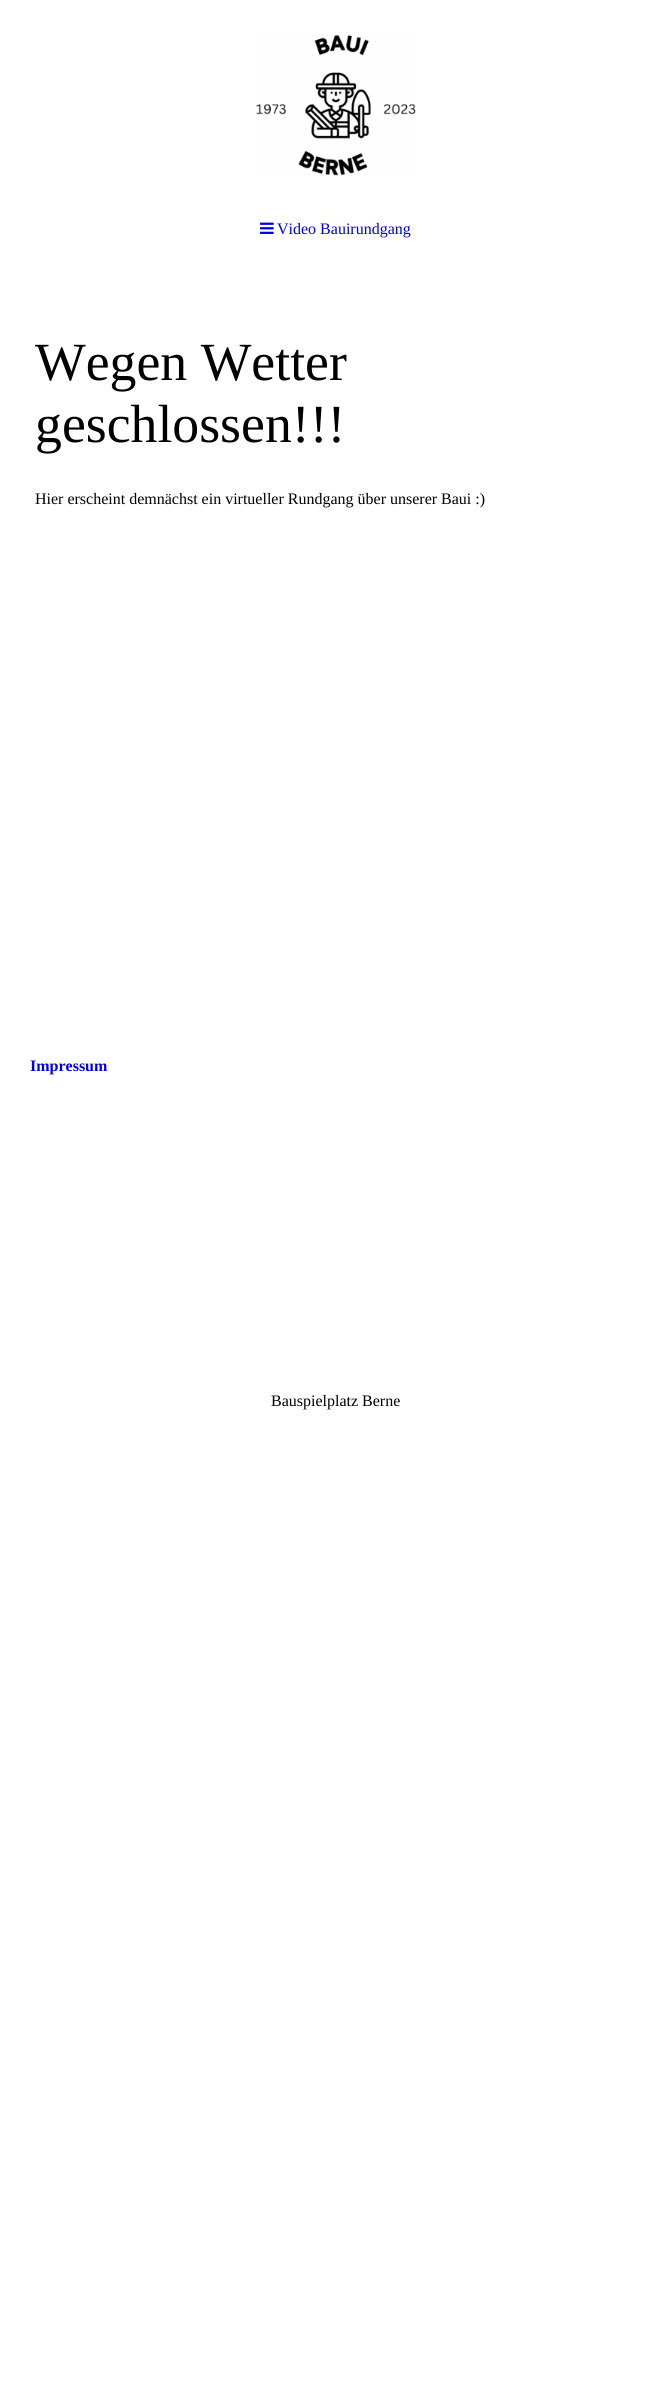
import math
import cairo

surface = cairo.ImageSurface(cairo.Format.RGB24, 671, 2391)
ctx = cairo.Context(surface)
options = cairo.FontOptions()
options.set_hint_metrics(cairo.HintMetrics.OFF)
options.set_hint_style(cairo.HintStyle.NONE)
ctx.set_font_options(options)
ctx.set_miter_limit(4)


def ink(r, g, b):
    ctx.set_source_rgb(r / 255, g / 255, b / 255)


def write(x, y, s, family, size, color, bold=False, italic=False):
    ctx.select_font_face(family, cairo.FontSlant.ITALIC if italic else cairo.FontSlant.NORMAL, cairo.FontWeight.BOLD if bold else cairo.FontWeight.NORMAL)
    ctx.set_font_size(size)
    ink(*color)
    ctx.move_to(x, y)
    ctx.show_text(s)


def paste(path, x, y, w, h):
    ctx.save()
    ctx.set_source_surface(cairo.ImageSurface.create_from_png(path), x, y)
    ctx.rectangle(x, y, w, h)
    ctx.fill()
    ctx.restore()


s1 = dict(family="Liberation Serif", size=16, color=(0, 0, 238))
s2 = dict(family="Liberation Serif", size=53.75, color=(0, 0, 0))
s3 = dict(family="Liberation Serif", size=16, color=(0, 0, 0))
s4 = dict(family="Liberation Serif", size=16, color=(0, 0, 238), bold=True)

ink(255, 255, 255)
ctx.paint()
paste("pic1.png", 256, 34, 160, 142)
paste("pic2.png", 260, 222, 14, 12)
write(277, 234, "Video Bauirundgang", **s1)
write(35, 380, "Wegen Wetter", **s2)
write(35, 442, "geschlossen!!!", **s2)
write(35, 504, "Hier erscheint demnächst ein virtueller Rundgang über unserer Baui :)", **s3)
write(30, 1071, "Impressum", **s4)
write(271, 1406, "Bauspielplatz Berne", **s3)
surface.write_to_png("screenshot.png")
